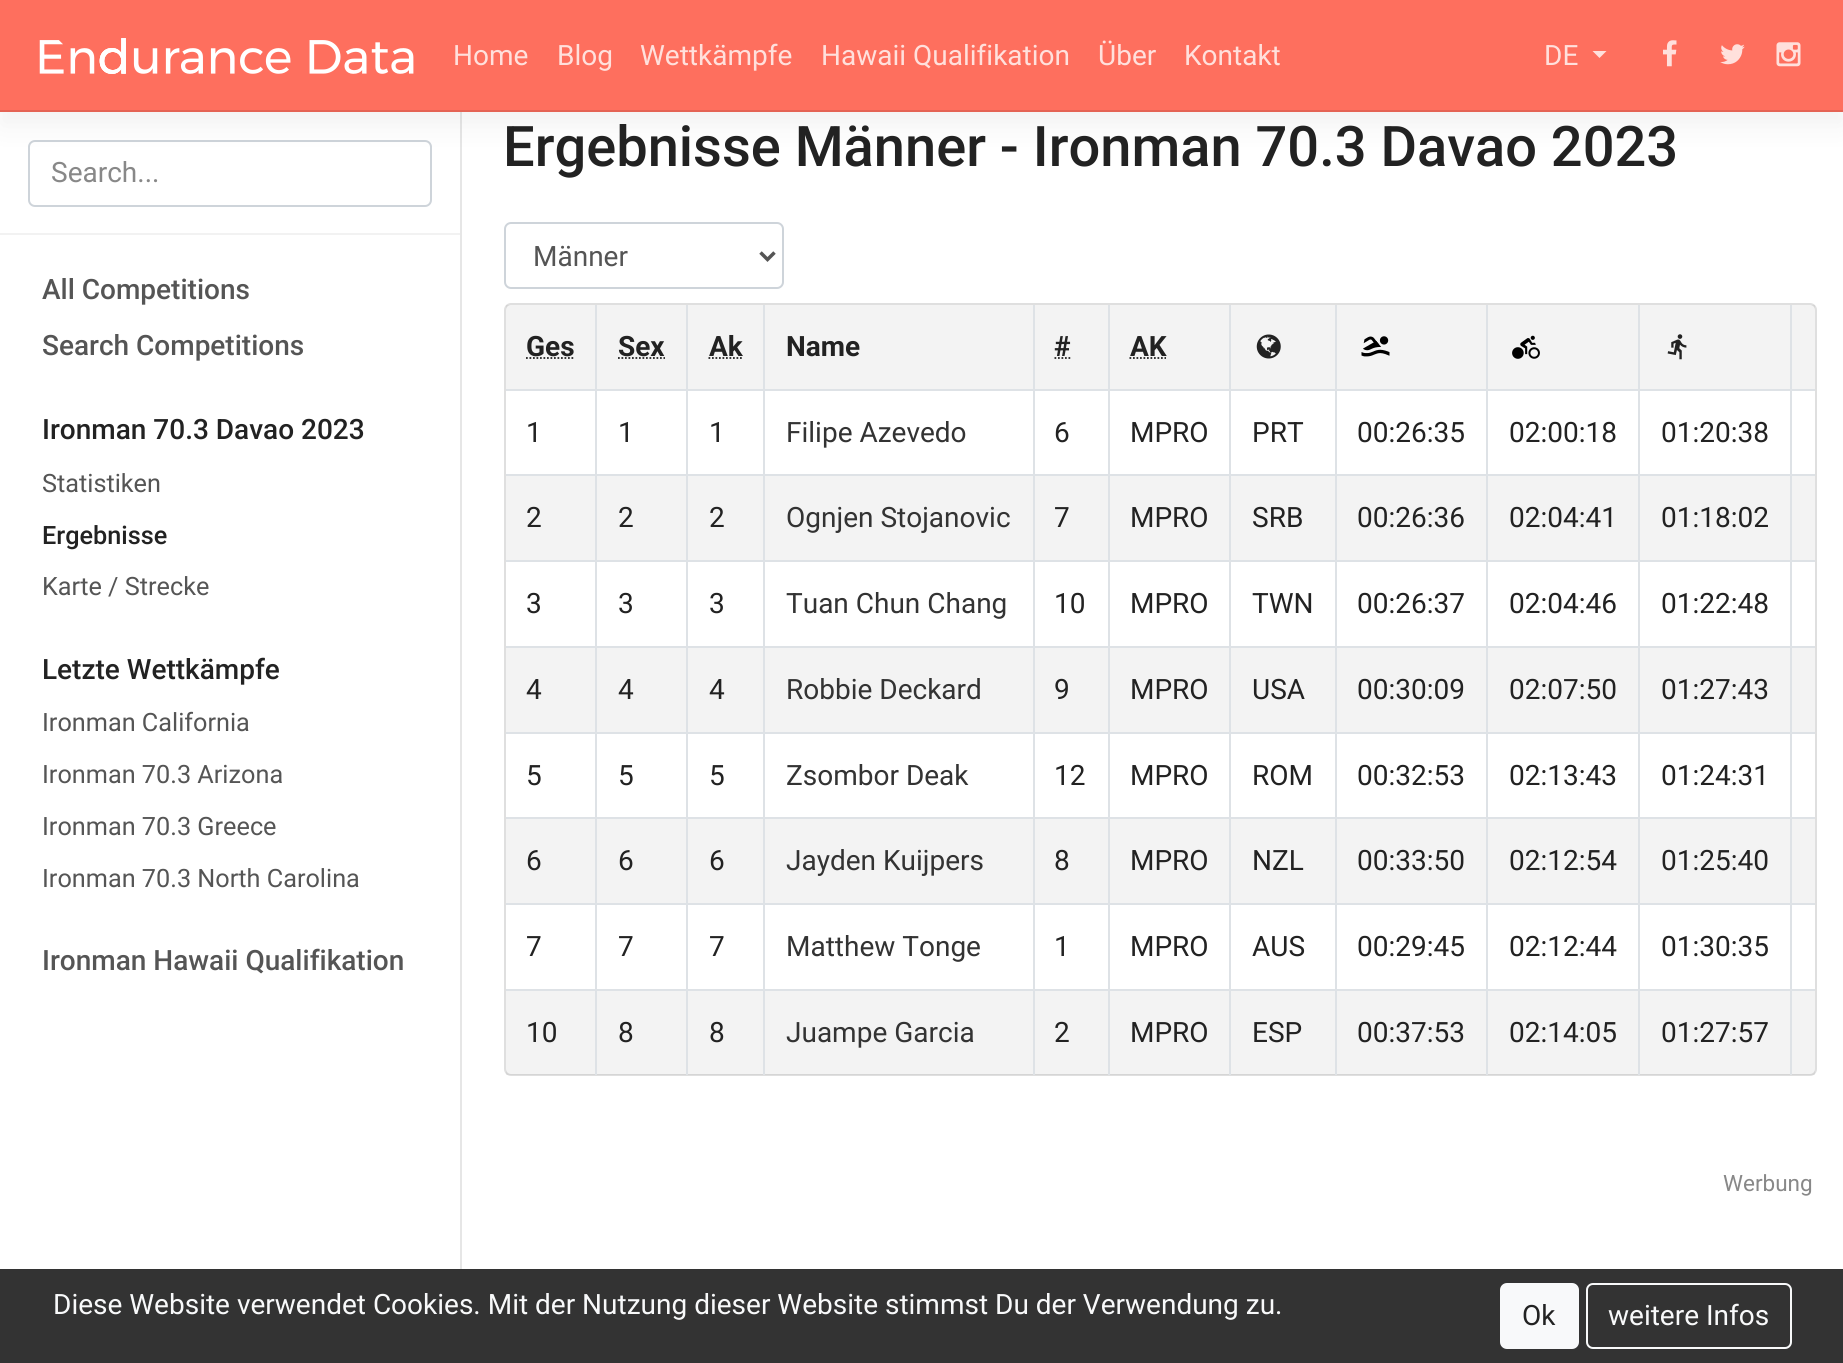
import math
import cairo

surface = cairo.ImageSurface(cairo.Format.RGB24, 1843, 1363)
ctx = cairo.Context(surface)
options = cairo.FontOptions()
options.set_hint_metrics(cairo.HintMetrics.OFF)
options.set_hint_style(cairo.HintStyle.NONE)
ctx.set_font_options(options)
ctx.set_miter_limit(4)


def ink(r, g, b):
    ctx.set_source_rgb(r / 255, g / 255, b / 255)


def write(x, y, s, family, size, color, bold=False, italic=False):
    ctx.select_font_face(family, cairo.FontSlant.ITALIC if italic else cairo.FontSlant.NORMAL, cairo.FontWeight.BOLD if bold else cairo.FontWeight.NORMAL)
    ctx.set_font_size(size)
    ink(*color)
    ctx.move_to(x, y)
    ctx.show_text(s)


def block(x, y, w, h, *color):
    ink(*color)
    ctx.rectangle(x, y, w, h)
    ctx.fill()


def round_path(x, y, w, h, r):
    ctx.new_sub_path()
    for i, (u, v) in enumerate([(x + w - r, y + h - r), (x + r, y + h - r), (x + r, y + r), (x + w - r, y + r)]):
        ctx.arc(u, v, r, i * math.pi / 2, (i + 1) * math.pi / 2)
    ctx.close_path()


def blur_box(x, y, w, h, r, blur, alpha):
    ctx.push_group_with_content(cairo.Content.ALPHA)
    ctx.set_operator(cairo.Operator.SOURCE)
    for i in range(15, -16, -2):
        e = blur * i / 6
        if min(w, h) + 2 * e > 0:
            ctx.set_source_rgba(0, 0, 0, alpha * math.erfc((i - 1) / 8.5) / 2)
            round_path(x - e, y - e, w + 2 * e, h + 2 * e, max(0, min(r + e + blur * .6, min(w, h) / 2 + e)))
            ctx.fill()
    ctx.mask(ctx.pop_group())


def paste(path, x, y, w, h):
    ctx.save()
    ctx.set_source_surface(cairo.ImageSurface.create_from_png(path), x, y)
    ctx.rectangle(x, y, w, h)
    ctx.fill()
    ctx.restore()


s1 = dict(family="Roboto", size=28, color=(255, 224, 220))
s2 = dict(family="Roboto", size=28, color=(136, 136, 136))
s3 = dict(family="Roboto Medium", size=28, color=(85, 85, 85))
s4 = dict(family="Roboto Medium", size=28, color=(34, 34, 34))
s5 = dict(family="Roboto", size=25.25, color=(85, 85, 85))
s6 = dict(family="Roboto Medium", size=25.25, color=(34, 34, 34))
s7 = dict(family="Roboto Medium", size=56, color=(34, 34, 34))
s8 = dict(family="Roboto", size=28, color=(85, 85, 85))
s9 = dict(family="Roboto", size=28, color=(34, 34, 34), bold=True)
s10 = dict(family="Roboto", size=28, color=(34, 34, 34))
s11 = dict(family="Roboto", size=28, color=(51, 51, 51))
s12 = dict(family="Roboto", size=22.5, color=(136, 136, 136))
s13 = dict(family="Roboto", size=28, color=(248, 249, 250))

ink(255, 255, 255)
ctx.paint()
block(460, 112, 2, 1157, 230, 230, 230)
round_path(29, 141, 402, 65, 6)
ink(206, 212, 218)
ctx.stroke()
ink(0, 0, 0)
blur_box(0, 14, 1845, 112, 0, 14, 0.05)
block(0, 0, 1843, 110, 254, 111, 94)
block(0, 110, 1843, 2, 229, 100, 85)
paste("pic1.png", 39, 38, 375, 36)
write(453, 65, "Home", **s1)
write(557, 65, "Blog", **s1)
write(640, 65, "Wettkämpfe", **s1)
write(821, 65, "Hawaii Qualifikation", **s1)
write(1098, 65, "Über", **s1)
write(1184, 65, "Kontakt", **s1)
write(1544, 65, "DE", **s1)
ctx.new_path()
ctx.move_to(1592.5, 51)
ctx.line_to(1606.5, 51)
ctx.line_to(1599.5, 58)
ctx.close_path()
ctx.fill()
paste("pic2.png", 1663, 40, 14, 27)
paste("pic3.png", 1720, 44, 25, 21)
paste("pic4.png", 1776, 42, 25, 25)
block(0, 233, 460, 2, 242, 242, 242)
write(51, 182, "Search...", **s2)
write(42, 299, "All Competitions", **s3)
write(42, 355, "Search Competitions", **s3)
write(42, 439, "Ironman 70.3 Davao 2023", **s4)
write(42, 492, "Statistiken", **s5)
write(42, 544, "Ergebnisse", **s6)
write(42, 595, "Karte / Strecke", **s5)
write(42, 679, "Letzte Wettkämpfe", **s4)
write(42, 731, "Ironman California", **s5)
write(42, 783, "Ironman 70.3 Arizona", **s5)
write(42, 835, "Ironman 70.3 Greece", **s5)
write(42, 887, "Ironman 70.3 North Carolina", **s5)
write(42, 970, "Ironman Hawaii Qualifikation", **s3)
write(503, 166, "Ergebnisse Männer - Ironman 70.3 Davao 2023", **s7)
round_path(505, 223, 278, 65, 6)
ink(206, 212, 218)
ctx.stroke()
ctx.new_path()
ctx.move_to(760.5, 252.5)
ctx.line_to(767.5, 259.5)
ctx.line_to(774.5, 252.5)
ink(85, 85, 85)
ctx.set_line_width(3.5)
ctx.stroke()
write(533, 266, "Männer", **s8)
round_path(505, 304, 1311, 771, 6)
ink(223, 223, 223)
ctx.set_line_width(2)
ctx.stroke()
ctx.set_source_rgba(0, 0, 0, 0.05)
ctx.rectangle(506, 305, 1309, 84)
ctx.fill()
write(526, 356, "Ges", **s9)
ctx.new_path()
ctx.move_to(526, 358)
ctx.line_to(574.5, 358)
ctx.set_line_width(1.8)
ctx.set_dash([1.75, 1.75])
ctx.stroke()
block(1790, 389, 25, 2, 222, 226, 230)
block(1790, 474, 25, 2, 222, 226, 230)
block(506, 476, 1309, 84, 243, 243, 243)
block(1790, 560, 25, 2, 222, 226, 230)
block(1790, 646, 25, 2, 222, 226, 230)
block(506, 648, 1309, 84, 243, 243, 243)
block(1790, 732, 25, 2, 222, 226, 230)
block(1790, 817, 25, 2, 222, 226, 230)
block(506, 819, 1309, 84, 243, 243, 243)
block(1790, 903, 25, 2, 222, 226, 230)
block(1790, 989, 25, 2, 222, 226, 230)
ctx.set_source_rgba(0, 0, 0, 0.05)
ctx.rectangle(506, 991, 1309, 84)
ctx.fill()
block(1790, 989, 2, 86, 222, 226, 230)
block(1638, 989, 154, 2, 222, 226, 230)
block(1790, 903, 2, 88, 222, 226, 230)
block(1638, 903, 154, 2, 222, 226, 230)
block(1790, 817, 2, 88, 222, 226, 230)
block(1638, 817, 154, 2, 222, 226, 230)
block(1790, 732, 2, 87, 222, 226, 230)
block(1638, 732, 154, 2, 222, 226, 230)
block(1790, 646, 2, 87, 222, 226, 230)
block(1638, 646, 154, 2, 222, 226, 230)
block(1790, 560, 2, 88, 222, 226, 230)
block(1638, 560, 154, 2, 222, 226, 230)
block(1790, 474, 2, 88, 222, 226, 230)
block(1638, 474, 154, 2, 222, 226, 230)
block(1790, 389, 2, 87, 222, 226, 230)
block(1638, 389, 154, 2, 222, 226, 230)
block(1638, 989, 2, 86, 222, 226, 230)
block(1486, 989, 154, 2, 222, 226, 230)
block(1638, 903, 2, 88, 222, 226, 230)
block(1486, 903, 154, 2, 222, 226, 230)
block(1638, 817, 2, 88, 222, 226, 230)
block(1486, 817, 154, 2, 222, 226, 230)
block(1638, 732, 2, 87, 222, 226, 230)
block(1486, 732, 154, 2, 222, 226, 230)
block(1638, 646, 2, 87, 222, 226, 230)
block(1486, 646, 154, 2, 222, 226, 230)
block(1638, 560, 2, 88, 222, 226, 230)
block(1486, 560, 154, 2, 222, 226, 230)
block(1638, 474, 2, 88, 222, 226, 230)
block(1486, 474, 154, 2, 222, 226, 230)
block(1638, 389, 2, 87, 222, 226, 230)
block(1486, 389, 154, 2, 222, 226, 230)
block(1486, 989, 2, 86, 222, 226, 230)
block(1335, 989, 153, 2, 222, 226, 230)
block(1486, 903, 2, 88, 222, 226, 230)
block(1335, 903, 153, 2, 222, 226, 230)
block(1486, 817, 2, 88, 222, 226, 230)
block(1335, 817, 153, 2, 222, 226, 230)
block(1486, 732, 2, 87, 222, 226, 230)
block(1335, 732, 153, 2, 222, 226, 230)
block(1486, 646, 2, 87, 222, 226, 230)
block(1335, 646, 153, 2, 222, 226, 230)
block(1486, 560, 2, 88, 222, 226, 230)
block(1335, 560, 153, 2, 222, 226, 230)
block(1486, 474, 2, 88, 222, 226, 230)
block(1335, 474, 153, 2, 222, 226, 230)
block(1486, 389, 2, 87, 222, 226, 230)
block(1335, 389, 153, 2, 222, 226, 230)
block(1335, 989, 2, 86, 222, 226, 230)
block(1229, 989, 108, 2, 222, 226, 230)
block(1335, 903, 2, 88, 222, 226, 230)
block(1229, 903, 108, 2, 222, 226, 230)
block(1335, 817, 2, 88, 222, 226, 230)
block(1229, 817, 108, 2, 222, 226, 230)
block(1335, 732, 2, 87, 222, 226, 230)
block(1229, 732, 108, 2, 222, 226, 230)
block(1335, 646, 2, 87, 222, 226, 230)
block(1229, 646, 108, 2, 222, 226, 230)
block(1335, 560, 2, 88, 222, 226, 230)
block(1229, 560, 108, 2, 222, 226, 230)
block(1335, 474, 2, 88, 222, 226, 230)
block(1229, 474, 108, 2, 222, 226, 230)
block(1335, 389, 2, 87, 222, 226, 230)
block(1229, 389, 108, 2, 222, 226, 230)
block(1229, 989, 2, 86, 222, 226, 230)
block(1108, 989, 122, 2, 222, 226, 230)
block(1229, 903, 2, 88, 222, 226, 230)
block(1108, 903, 122, 2, 222, 226, 230)
block(1229, 817, 2, 88, 222, 226, 230)
block(1108, 817, 122, 2, 222, 226, 230)
block(1229, 732, 2, 87, 222, 226, 230)
block(1108, 732, 122, 2, 222, 226, 230)
block(1229, 646, 2, 87, 222, 226, 230)
block(1108, 646, 122, 2, 222, 226, 230)
block(1229, 560, 2, 88, 222, 226, 230)
block(1108, 560, 122, 2, 222, 226, 230)
block(1229, 474, 2, 88, 222, 226, 230)
block(1108, 474, 122, 2, 222, 226, 230)
block(1229, 389, 2, 87, 222, 226, 230)
block(1108, 389, 122, 2, 222, 226, 230)
block(1108, 989, 2, 86, 222, 226, 230)
block(1033, 989, 77, 2, 222, 226, 230)
block(1108, 903, 2, 88, 222, 226, 230)
block(1033, 903, 77, 2, 222, 226, 230)
block(1108, 817, 2, 88, 222, 226, 230)
block(1033, 817, 77, 2, 222, 226, 230)
block(1108, 732, 2, 87, 222, 226, 230)
block(1033, 732, 77, 2, 222, 226, 230)
block(1108, 646, 2, 87, 222, 226, 230)
block(1033, 646, 77, 2, 222, 226, 230)
block(1108, 560, 2, 88, 222, 226, 230)
block(1033, 560, 77, 2, 222, 226, 230)
block(1108, 474, 2, 88, 222, 226, 230)
block(1033, 474, 77, 2, 222, 226, 230)
block(1108, 389, 2, 87, 222, 226, 230)
block(1033, 389, 77, 2, 222, 226, 230)
block(1033, 989, 2, 86, 222, 226, 230)
block(763, 989, 271, 2, 222, 226, 230)
block(1033, 903, 2, 88, 222, 226, 230)
block(763, 903, 271, 2, 222, 226, 230)
block(1033, 817, 2, 88, 222, 226, 230)
block(763, 817, 271, 2, 222, 226, 230)
block(1033, 732, 2, 87, 222, 226, 230)
block(763, 732, 271, 2, 222, 226, 230)
block(1033, 646, 2, 87, 222, 226, 230)
block(763, 646, 271, 2, 222, 226, 230)
block(1033, 560, 2, 88, 222, 226, 230)
block(763, 560, 271, 2, 222, 226, 230)
block(1033, 474, 2, 88, 222, 226, 230)
block(763, 474, 271, 2, 222, 226, 230)
block(1033, 389, 2, 87, 222, 226, 230)
block(763, 389, 271, 2, 222, 226, 230)
block(763, 989, 2, 86, 222, 226, 230)
block(686, 989, 79, 2, 222, 226, 230)
block(763, 903, 2, 88, 222, 226, 230)
block(686, 903, 79, 2, 222, 226, 230)
block(763, 817, 2, 88, 222, 226, 230)
block(686, 817, 79, 2, 222, 226, 230)
block(763, 732, 2, 87, 222, 226, 230)
block(686, 732, 79, 2, 222, 226, 230)
block(763, 646, 2, 87, 222, 226, 230)
block(686, 646, 79, 2, 222, 226, 230)
block(763, 560, 2, 88, 222, 226, 230)
block(686, 560, 79, 2, 222, 226, 230)
block(763, 474, 2, 88, 222, 226, 230)
block(686, 474, 79, 2, 222, 226, 230)
block(763, 389, 2, 87, 222, 226, 230)
block(686, 389, 79, 2, 222, 226, 230)
block(686, 989, 2, 86, 222, 226, 230)
block(595, 989, 93, 2, 222, 226, 230)
block(686, 903, 2, 88, 222, 226, 230)
block(595, 903, 93, 2, 222, 226, 230)
block(686, 817, 2, 88, 222, 226, 230)
block(595, 817, 93, 2, 222, 226, 230)
block(686, 732, 2, 87, 222, 226, 230)
block(595, 732, 93, 2, 222, 226, 230)
block(686, 646, 2, 87, 222, 226, 230)
block(595, 646, 93, 2, 222, 226, 230)
block(686, 560, 2, 88, 222, 226, 230)
block(595, 560, 93, 2, 222, 226, 230)
block(686, 474, 2, 88, 222, 226, 230)
block(595, 474, 93, 2, 222, 226, 230)
block(686, 389, 2, 87, 222, 226, 230)
block(595, 389, 93, 2, 222, 226, 230)
block(595, 989, 2, 86, 222, 226, 230)
block(506, 989, 91, 2, 222, 226, 230)
block(595, 903, 2, 88, 222, 226, 230)
block(506, 903, 91, 2, 222, 226, 230)
block(595, 817, 2, 88, 222, 226, 230)
block(506, 817, 91, 2, 222, 226, 230)
block(595, 732, 2, 87, 222, 226, 230)
block(506, 732, 91, 2, 222, 226, 230)
block(595, 646, 2, 87, 222, 226, 230)
block(506, 646, 91, 2, 222, 226, 230)
block(595, 560, 2, 88, 222, 226, 230)
block(506, 560, 91, 2, 222, 226, 230)
block(595, 474, 2, 88, 222, 226, 230)
block(506, 474, 91, 2, 222, 226, 230)
block(595, 389, 2, 87, 222, 226, 230)
block(506, 389, 91, 2, 222, 226, 230)
block(595, 305, 2, 85, 222, 226, 230)
write(618, 356, "Sex", **s9)
ctx.new_path()
ctx.move_to(618, 358)
ctx.line_to(665, 358)
ctx.stroke()
block(686, 305, 2, 85, 222, 226, 230)
write(709, 356, "Ak", **s9)
ctx.new_path()
ctx.move_to(708.5, 358)
ctx.line_to(742.5, 358)
ctx.stroke()
block(763, 305, 2, 85, 222, 226, 230)
write(786, 356, "Name", **s9)
block(1033, 305, 2, 85, 222, 226, 230)
write(1054, 356, "#", **s9)
ctx.new_path()
ctx.move_to(1054.5, 358)
ctx.line_to(1071, 358)
ctx.stroke()
block(1108, 305, 2, 85, 222, 226, 230)
write(1130, 356, "AK", **s9)
ctx.new_path()
ctx.move_to(1129.5, 358)
ctx.line_to(1166, 358)
ctx.stroke()
block(1229, 305, 2, 85, 222, 226, 230)
paste("pic5.png", 1256, 334, 25, 25)
block(1335, 305, 2, 85, 222, 226, 230)
paste("pic6.png", 1361, 336, 29, 21)
block(1486, 305, 2, 85, 222, 226, 230)
paste("pic7.png", 1512, 335, 28, 24)
block(1638, 305, 2, 85, 222, 226, 230)
paste("pic8.png", 1667, 334, 20, 26)
block(1790, 305, 2, 85, 222, 226, 230)
write(526, 442, "1", **s10)
write(618, 442, "1", **s10)
write(709, 442, "1", **s10)
write(786, 442, "Filipe Azevedo", **s11)
write(1054, 442, "6", **s10)
write(1130, 442, "MPRO", **s10)
write(1252, 442, "PRT", **s10)
write(1357, 442, "00:26:35", **s10)
write(1509, 442, "02:00:18", **s10)
write(1661, 442, "01:20:38", **s10)
write(526, 527, "2", **s10)
write(618, 527, "2", **s10)
write(709, 527, "2", **s10)
write(786, 527, "Ognjen Stojanovic", **s11)
write(1054, 527, "7", **s10)
write(1130, 527, "MPRO", **s10)
write(1252, 527, "SRB", **s10)
write(1357, 527, "00:26:36", **s10)
write(1509, 527, "02:04:41", **s10)
write(1661, 527, "01:18:02", **s10)
write(526, 613, "3", **s10)
write(618, 613, "3", **s10)
write(709, 613, "3", **s10)
write(786, 613, "Tuan Chun Chang", **s11)
write(1054, 613, "10", **s10)
write(1130, 613, "MPRO", **s10)
write(1252, 613, "TWN", **s10)
write(1357, 613, "00:26:37", **s10)
write(1509, 613, "02:04:46", **s10)
write(1661, 613, "01:22:48", **s10)
write(526, 699, "4", **s10)
write(618, 699, "4", **s10)
write(709, 699, "4", **s10)
write(786, 699, "Robbie Deckard", **s11)
write(1054, 699, "9", **s10)
write(1130, 699, "MPRO", **s10)
write(1252, 699, "USA", **s10)
write(1357, 699, "00:30:09", **s10)
write(1509, 699, "02:07:50", **s10)
write(1661, 699, "01:27:43", **s10)
write(526, 785, "5", **s10)
write(618, 785, "5", **s10)
write(709, 785, "5", **s10)
write(786, 785, "Zsombor Deak", **s11)
write(1054, 785, "12", **s10)
write(1130, 785, "MPRO", **s10)
write(1252, 785, "ROM", **s10)
write(1357, 785, "00:32:53", **s10)
write(1509, 785, "02:13:43", **s10)
write(1661, 785, "01:24:31", **s10)
write(526, 870, "6", **s10)
write(618, 870, "6", **s10)
write(709, 870, "6", **s10)
write(786, 870, "Jayden Kuijpers", **s11)
write(1054, 870, "8", **s10)
write(1130, 870, "MPRO", **s10)
write(1252, 870, "NZL", **s10)
write(1357, 870, "00:33:50", **s10)
write(1509, 870, "02:12:54", **s10)
write(1661, 870, "01:25:40", **s10)
write(526, 956, "7", **s10)
write(618, 956, "7", **s10)
write(709, 956, "7", **s10)
write(786, 956, "Matthew Tonge", **s11)
write(1054, 956, "1", **s10)
write(1130, 956, "MPRO", **s10)
write(1252, 956, "AUS", **s10)
write(1357, 956, "00:29:45", **s10)
write(1509, 956, "02:12:44", **s10)
write(1661, 956, "01:30:35", **s10)
write(526, 1042, "10", **s10)
write(618, 1042, "8", **s10)
write(709, 1042, "8", **s10)
write(786, 1042, "Juampe Garcia", **s11)
write(1054, 1042, "2", **s10)
write(1130, 1042, "MPRO", **s10)
write(1252, 1042, "ESP", **s10)
write(1357, 1042, "00:37:53", **s10)
write(1509, 1042, "02:14:05", **s10)
write(1661, 1042, "01:27:57", **s10)
write(1723, 1191, "Werbung", **s12)
block(0, 1269, 1843, 94, 51, 51, 51)
write(53, 1314, "Diese Website verwendet Cookies. Mit der Nutzung dieser Website stimmst Du der Verwendung zu.", **s13)
round_path(1501, 1284, 77, 64, 6)
ctx.fill_preserve()
ctx.set_line_width(2)
ctx.set_dash([])
ctx.stroke()
write(1522, 1325, "Ok", **s10)
round_path(1587, 1284, 204, 64, 6)
ink(248, 249, 250)
ctx.stroke()
write(1608, 1325, "weitere Infos", **s13)
surface.write_to_png("screenshot.png")
